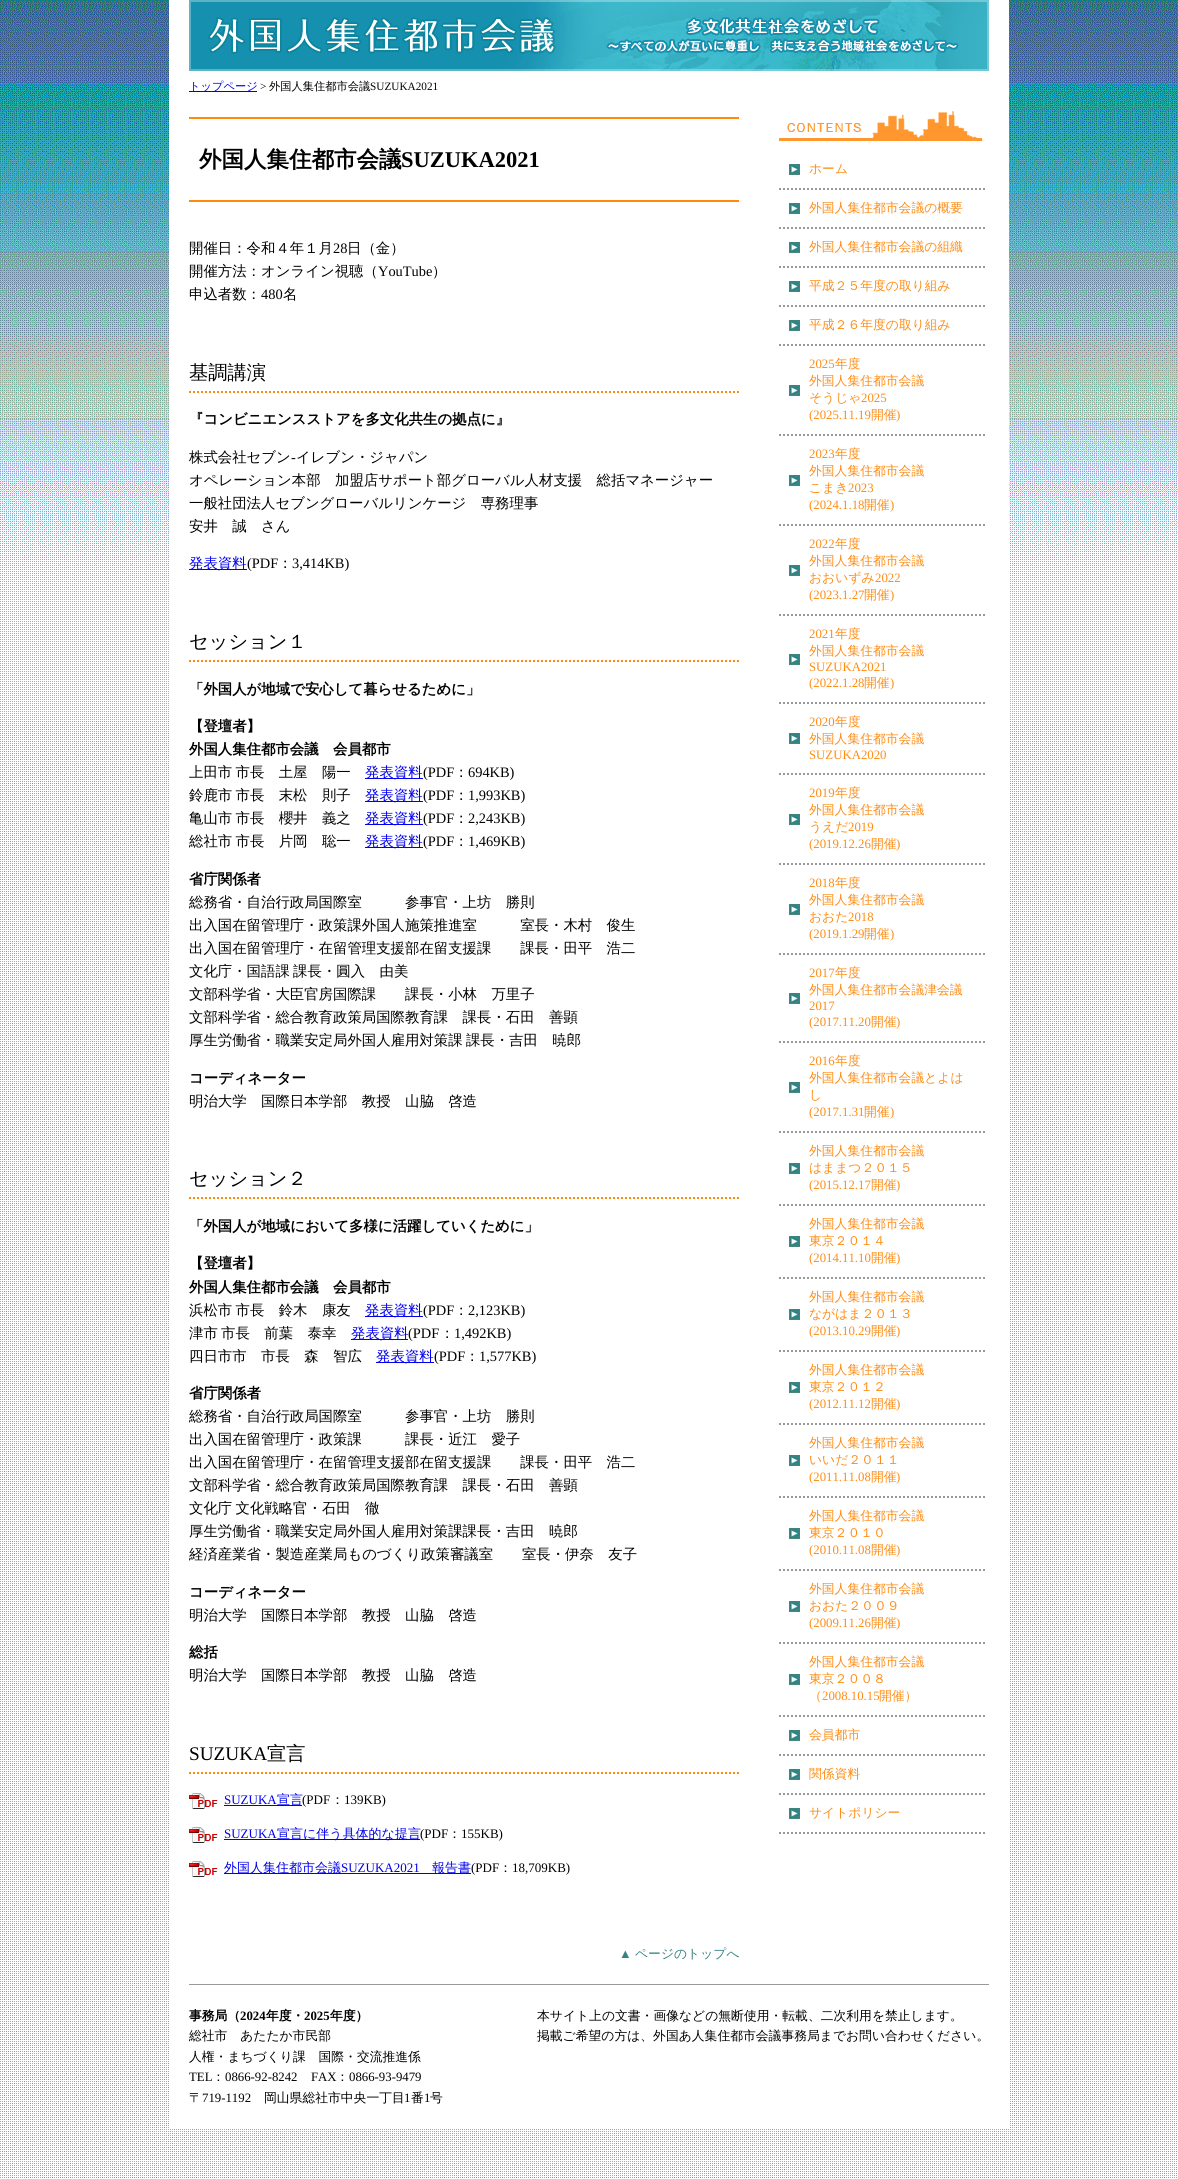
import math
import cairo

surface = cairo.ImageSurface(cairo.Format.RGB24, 1178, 2179)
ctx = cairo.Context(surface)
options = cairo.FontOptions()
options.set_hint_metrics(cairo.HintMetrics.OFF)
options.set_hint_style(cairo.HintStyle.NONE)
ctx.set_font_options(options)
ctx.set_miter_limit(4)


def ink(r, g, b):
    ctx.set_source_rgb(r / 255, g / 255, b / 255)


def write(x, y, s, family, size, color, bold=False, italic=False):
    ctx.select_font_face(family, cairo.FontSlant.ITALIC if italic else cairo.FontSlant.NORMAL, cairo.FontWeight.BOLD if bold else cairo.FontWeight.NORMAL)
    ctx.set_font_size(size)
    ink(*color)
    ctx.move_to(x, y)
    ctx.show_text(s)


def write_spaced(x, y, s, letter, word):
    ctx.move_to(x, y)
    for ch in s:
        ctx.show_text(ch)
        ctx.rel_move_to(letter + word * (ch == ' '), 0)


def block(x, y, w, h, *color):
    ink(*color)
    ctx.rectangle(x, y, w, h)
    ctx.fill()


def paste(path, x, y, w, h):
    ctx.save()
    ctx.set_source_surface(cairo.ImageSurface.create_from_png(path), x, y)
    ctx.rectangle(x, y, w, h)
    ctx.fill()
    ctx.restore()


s1 = dict(family="WenQuanYi Zen Hei Medium", size=11.25, color=(0, 0, 238))
s2 = dict(family="Liberation Serif", size=11.25, color=(0, 0, 0))
s3 = dict(family="WenQuanYi Zen Hei Medium", size=11.25, color=(0, 0, 0))
s4 = dict(family="WenQuanYi Zen Hei", size=22.5, color=(0, 0, 0), bold=True)
s5 = dict(family="Liberation Serif", size=22.5, color=(0, 0, 0), bold=True)
s6 = dict(family="WenQuanYi Zen Hei Medium", size=14.4, color=(0, 0, 0))
s7 = dict(family="Liberation Serif", size=14.4, color=(0, 0, 0))
s8 = dict(family="WenQuanYi Zen Hei Medium", size=19.25, color=(0, 0, 0))
s9 = dict(family="WenQuanYi Zen Hei", size=14.4, color=(0, 0, 0), bold=True)
s10 = dict(family="WenQuanYi Zen Hei Medium", size=14.4, color=(0, 0, 238))
s11 = dict(family="Liberation Serif", size=19.25, color=(0, 0, 0))
s12 = dict(family="Liberation Serif", size=13, color=(0, 0, 238))
s13 = dict(family="WenQuanYi Zen Hei Medium", size=13, color=(0, 0, 238))
s14 = dict(family="Liberation Serif", size=13, color=(0, 0, 0))
s15 = dict(family="WenQuanYi Zen Hei Medium", size=13, color=(0, 0, 0))
s16 = dict(family="Liberation Serif", size=12.8, color=(54, 131, 131))
s17 = dict(family="WenQuanYi Zen Hei Medium", size=12.8, color=(54, 131, 131))
s18 = dict(family="WenQuanYi Zen Hei Medium", size=12.8, color=(254, 141, 22))
s19 = dict(family="Liberation Serif", size=12.8, color=(254, 141, 22))
s20 = dict(family="WenQuanYi Zen Hei", size=12.8, color=(0, 0, 0), bold=True)
s21 = dict(family="Liberation Serif", size=12.8, color=(0, 0, 0), bold=True)
s22 = dict(family="WenQuanYi Zen Hei Medium", size=12.8, color=(0, 0, 0))
s23 = dict(family="Liberation Serif", size=12.8, color=(0, 0, 0))

ink(255, 255, 255)
ctx.paint()
paste("pic1.png", 0, 0, 1178, 2178)
block(169, 0, 840, 2128, 255, 255, 255)
paste("pic2.png", 189, 0, 800, 71)
block(189, 91, 68, 1, 0, 0, 238)
write(189, 90, "トップページ", **s1)
write(260, 90, ">", **s2)
write(269, 90, "外国人集住都市会議", **s3)
write(370, 90, "SUZUKA2021", **s2)
block(189, 117, 550, 2, 254, 137, 10)
block(189, 200, 550, 2, 254, 137, 10)
write(199, 167, "外国人集住都市会議", **s4)
write(401, 167, "SUZUKA2021", **s5)
write(189, 253, "開催日：令和４年１月", **s6)
write(333, 253, "28", **s7)
write(347, 253, "日（金）", **s6)
write(189, 276, "開催方法：オンライン視聴（", **s6)
write(378, 276, "YouTube", **s7)
write(432, 276, "）", **s6)
write(189, 299, "申込者数：", **s6)
write(261, 299, "480", **s7)
write(283, 299, "名", **s6)
ctx.new_path()
ctx.move_to(189, 392)
ctx.line_to(739, 392)
ink(254, 137, 10)
ctx.set_dash([2, 2])
ctx.stroke()
write(189, 379, "基調講演", **s8)
write(189, 424, "『コンビニエンスストアを多文化共生の拠点に』", **s9)
write(189, 462, "株式会社セブン", **s6)
write(291, 462, "-", **s7)
write(296, 462, "イレブン・ジャパン", **s6)
write(189, 485, "オペレーション本部　加盟店サポート部グローバル人材支援　総括マネージャー", **s6)
write(189, 508, "一般社団法人セブングローバルリンケージ　専務理事", **s6)
write(189, 531, "安井　誠　さん", **s6)
block(189, 569, 58, 1, 0, 0, 238)
write(189, 568, "発表資料", **s10)
write(247, 568, "(PDF", **s7)
write(278, 568, "：", **s6)
write(292, 568, "3,414KB)", **s7)
ctx.new_path()
ctx.move_to(189, 661)
ctx.line_to(739, 661)
ink(254, 137, 10)
ctx.stroke()
write(189, 648, "セッション１", **s8)
write(189, 694, "「外国人が地域で安心して暮らせるために」", **s9)
write(189, 731, "【登壇者】", **s9)
write(189, 754, "外国人集住都市会議　会員都市", **s9)
ctx.select_font_face("WenQuanYi Zen Hei Medium")
write_spaced(189, 777, "上田市 市長　土屋　陽一", 0, -1)
block(365, 778, 58, 1, 0, 0, 238)
write(365, 777, "発表資料", **s10)
write(423, 777, "(PDF", **s7)
write(454, 777, "：", **s6)
write(468, 777, "694KB)", **s7)
ctx.select_font_face("WenQuanYi Zen Hei Medium")
write_spaced(189, 800, "鈴鹿市 市長　末松　則子", 0, -1)
block(365, 801, 58, 1, 0, 0, 238)
write(365, 800, "発表資料", **s10)
write(423, 800, "(PDF", **s7)
write(454, 800, "：", **s6)
write(468, 800, "1,993KB)", **s7)
ctx.select_font_face("WenQuanYi Zen Hei Medium")
write_spaced(189, 823, "亀山市 市長　櫻井　義之", 0, -1)
block(365, 824, 58, 1, 0, 0, 238)
write(365, 823, "発表資料", **s10)
write(423, 823, "(PDF", **s7)
write(454, 823, "：", **s6)
write(468, 823, "2,243KB)", **s7)
ctx.select_font_face("WenQuanYi Zen Hei Medium")
write_spaced(189, 846, "総社市 市長　片岡　聡一", 0, -1)
block(365, 847, 58, 1, 0, 0, 238)
write(365, 846, "発表資料", **s10)
write(423, 846, "(PDF", **s7)
write(454, 846, "：", **s6)
write(468, 846, "1,469KB)", **s7)
write(189, 884, "省庁関係者", **s9)
write(189, 907, "総務省・自治行政局国際室　　　参事官・上坊　勝則", **s6)
write(189, 930, "出入国在留管理庁・政策課外国人施策推進室　　　室長・木村　俊生", **s6)
write(189, 953, "出入国在留管理庁・在留管理支援部在留支援課　　課長・田平　浩二", **s6)
write_spaced(189, 976, "文化庁・国語課 課長・圓入　由美", 0, -1)
write(189, 999, "文部科学省・大臣官房国際課　　課長・小林　万里子", **s6)
write(189, 1022, "文部科学省・総合教育政策局国際教育課　課長・石田　善顕", **s6)
write_spaced(189, 1045, "厚生労働省・職業安定局外国人雇用対策課 課長・吉田　暁郎", 0, -1)
write(189, 1083, "コーディネーター", **s9)
write(189, 1106, "明治大学　国際日本学部　教授　山脇　啓造", **s6)
ctx.new_path()
ctx.move_to(189, 1198)
ctx.line_to(739, 1198)
ink(254, 137, 10)
ctx.stroke()
write(189, 1185, "セッション２", **s8)
write(189, 1231, "「外国人が地域において多様に活躍していくために」", **s9)
write(189, 1268, "【登壇者】", **s9)
write(189, 1292, "外国人集住都市会議　会員都市", **s9)
ctx.select_font_face("WenQuanYi Zen Hei Medium")
write_spaced(189, 1315, "浜松市 市長　鈴木　康友", 0, -1)
block(365, 1316, 58, 1, 0, 0, 238)
write(365, 1315, "発表資料", **s10)
write(423, 1315, "(PDF", **s7)
write(454, 1315, "：", **s6)
write(468, 1315, "2,123KB)", **s7)
ctx.select_font_face("WenQuanYi Zen Hei Medium")
write_spaced(189, 1338, "津市 市長　前葉　泰幸", 0, -1)
block(351, 1339, 57, 1, 0, 0, 238)
write(351, 1338, "発表資料", **s10)
write(408, 1338, "(PDF", **s7)
write(440, 1338, "：", **s6)
write(454, 1338, "1,492KB)", **s7)
write(189, 1361, "四日市市　市長　森　智広", **s6)
block(376, 1362, 58, 1, 0, 0, 238)
write(376, 1361, "発表資料", **s10)
write(434, 1361, "(PDF", **s7)
write(465, 1361, "：", **s6)
write(479, 1361, "1,577KB)", **s7)
write(189, 1398, "省庁関係者", **s9)
write(189, 1421, "総務省・自治行政局国際室　　　参事官・上坊　勝則", **s6)
write(189, 1444, "出入国在留管理庁・政策課　　　課長・近江　愛子", **s6)
write(189, 1467, "出入国在留管理庁・在留管理支援部在留支援課　　課長・田平　浩二", **s6)
write(189, 1490, "文部科学省・総合教育政策局国際教育課　課長・石田　善顕", **s6)
write_spaced(189, 1513, "文化庁 文化戦略官・石田　徹", 0, -1)
write(189, 1536, "厚生労働省・職業安定局外国人雇用対策課課長・吉田　暁郎", **s6)
write(189, 1559, "経済産業省・製造産業局ものづくり政策審議室　　室長・伊奈　友子", **s6)
write(189, 1597, "コーディネーター", **s9)
write(189, 1620, "明治大学　国際日本学部　教授　山脇　啓造", **s6)
write(189, 1657, "総括", **s9)
write(189, 1680, "明治大学　国際日本学部　教授　山脇　啓造", **s6)
ctx.new_path()
ctx.move_to(189, 1773)
ctx.line_to(739, 1773)
ink(254, 137, 10)
ctx.stroke()
write(189, 1760, "SUZUKA", **s11)
write(267, 1760, "宣言", **s8)
paste("pic3.png", 189, 1793, 29, 16)
write(224, 1804, "SUZUKA", **s12)
block(224, 1805, 78, 1, 0, 0, 238)
write(277, 1804, "宣言", **s13)
write(302, 1804, "(PDF", **s14)
write(331, 1804, "：", **s15)
write(344, 1804, "139KB)", **s14)
paste("pic3.png", 189, 1827, 29, 16)
write(224, 1838, "SUZUKA", **s12)
block(224, 1839, 196, 1, 0, 0, 238)
write(277, 1838, "宣言に伴う具体的な提言", **s13)
write(420, 1838, "(PDF", **s14)
write(448, 1838, "：", **s15)
write(461, 1838, "155KB)", **s14)
paste("pic3.png", 189, 1861, 29, 16)
block(224, 1873, 247, 1, 0, 0, 238)
write(224, 1872, "外国人集住都市会議", **s13)
write(341, 1872, "SUZUKA2021", **s12)
write(432, 1872, "報告書", **s13)
write(471, 1872, "(PDF", **s14)
write(499, 1872, "：", **s15)
write(512, 1872, "18,709KB)", **s14)
write(619, 1958, "▲", **s16)
write(635, 1958, "ページのトップへ", **s17)
paste("pic4.png", 779, 111, 204, 30)
paste("pic5.png", 789, 164, 11, 11)
ctx.new_path()
ctx.move_to(779, 189)
ctx.line_to(986, 189)
ink(153, 153, 153)
ctx.stroke()
write(809, 173, "ホーム", **s18)
paste("pic5.png", 789, 203, 11, 11)
ctx.new_path()
ctx.move_to(779, 228)
ctx.line_to(986, 228)
ink(153, 153, 153)
ctx.stroke()
write(809, 212, "外国人集住都市会議の概要", **s18)
paste("pic5.png", 789, 242, 11, 11)
ctx.new_path()
ctx.move_to(779, 267)
ctx.line_to(986, 267)
ink(153, 153, 153)
ctx.stroke()
write(809, 251, "外国人集住都市会議の組織", **s18)
paste("pic5.png", 789, 281, 11, 11)
ctx.new_path()
ctx.move_to(779, 306)
ctx.line_to(986, 306)
ink(153, 153, 153)
ctx.stroke()
write(809, 290, "平成２５年度の取り組み", **s18)
paste("pic5.png", 789, 320, 11, 11)
ctx.new_path()
ctx.move_to(779, 345)
ctx.line_to(986, 345)
ink(153, 153, 153)
ctx.stroke()
write(809, 329, "平成２６年度の取り組み", **s18)
paste("pic5.png", 789, 385, 11, 11)
ctx.new_path()
ctx.move_to(779, 435)
ctx.line_to(986, 435)
ink(153, 153, 153)
ctx.stroke()
write(809, 368, "2025", **s19)
write(835, 368, "年度", **s18)
write(809, 385, "外国人集住都市会議", **s18)
write(809, 402, "そうじゃ", **s18)
write(861, 402, "2025", **s19)
write(809, 419, "(2025.11.19", **s19)
write(871, 419, "開催", **s18)
write(896, 419, ")", **s19)
paste("pic5.png", 789, 475, 11, 11)
ctx.new_path()
ctx.move_to(779, 525)
ctx.line_to(986, 525)
ink(153, 153, 153)
ctx.stroke()
write(809, 458, "2023", **s19)
write(835, 458, "年度", **s18)
write(809, 475, "外国人集住都市会議", **s18)
write(809, 492, "こまき", **s18)
write(848, 492, "2023", **s19)
write(809, 509, "(2024.1.18", **s19)
write(864, 509, "開催", **s18)
write(890, 509, ")", **s19)
paste("pic5.png", 789, 565, 11, 11)
ctx.new_path()
ctx.move_to(779, 615)
ctx.line_to(986, 615)
ink(153, 153, 153)
ctx.stroke()
write(809, 548, "2022", **s19)
write(835, 548, "年度", **s18)
write(809, 565, "外国人集住都市会議", **s18)
write(809, 582, "おおいずみ", **s18)
write(875, 582, "2022", **s19)
write(809, 599, "(2023.1.27", **s19)
write(864, 599, "開催", **s18)
write(890, 599, ")", **s19)
paste("pic5.png", 789, 654, 11, 11)
ctx.new_path()
ctx.move_to(779, 703)
ctx.line_to(986, 703)
ink(153, 153, 153)
ctx.stroke()
write(809, 638, "2021", **s19)
write(835, 638, "年度", **s18)
write(809, 655, "外国人集住都市会議", **s18)
write(809, 671, "SUZUKA2021", **s19)
write(809, 687, "(2022.1.28", **s19)
write(864, 687, "開催", **s18)
write(890, 687, ")", **s19)
paste("pic5.png", 789, 733, 11, 11)
ctx.new_path()
ctx.move_to(779, 774)
ctx.line_to(986, 774)
ink(153, 153, 153)
ctx.stroke()
write(809, 726, "2020", **s19)
write(835, 726, "年度", **s18)
write(809, 743, "外国人集住都市会議", **s18)
write(809, 759, "SUZUKA2020", **s19)
paste("pic5.png", 789, 814, 11, 11)
ctx.new_path()
ctx.move_to(779, 864)
ctx.line_to(986, 864)
ink(153, 153, 153)
ctx.stroke()
write(809, 797, "2019", **s19)
write(835, 797, "年度", **s18)
write(809, 814, "外国人集住都市会議", **s18)
write(809, 831, "うえだ", **s18)
write(848, 831, "2019", **s19)
write(809, 848, "(2019.12.26", **s19)
write(871, 848, "開催", **s18)
write(896, 848, ")", **s19)
paste("pic5.png", 789, 904, 11, 11)
ctx.new_path()
ctx.move_to(779, 954)
ctx.line_to(986, 954)
ink(153, 153, 153)
ctx.stroke()
write(809, 887, "2018", **s19)
write(835, 887, "年度", **s18)
write(809, 904, "外国人集住都市会議", **s18)
write(809, 921, "おおた", **s18)
write(848, 921, "2018", **s19)
write(809, 938, "(2019.1.29", **s19)
write(864, 938, "開催", **s18)
write(890, 938, ")", **s19)
paste("pic5.png", 789, 993, 11, 11)
ctx.new_path()
ctx.move_to(779, 1042)
ctx.line_to(986, 1042)
ink(153, 153, 153)
ctx.stroke()
write(809, 977, "2017", **s19)
write(835, 977, "年度", **s18)
write(809, 994, "外国人集住都市会議津会議", **s18)
write(809, 1010, "2017", **s19)
write(809, 1026, "(2017.11.20", **s19)
write(871, 1026, "開催", **s18)
write(896, 1026, ")", **s19)
paste("pic5.png", 789, 1082, 11, 11)
ctx.new_path()
ctx.move_to(779, 1132)
ctx.line_to(986, 1132)
ink(153, 153, 153)
ctx.stroke()
write(809, 1065, "2016", **s19)
write(835, 1065, "年度", **s18)
write(809, 1082, "外国人集住都市会議とよは", **s18)
write(809, 1099, "し", **s18)
write(809, 1116, "(2017.1.31", **s19)
write(864, 1116, "開催", **s18)
write(890, 1116, ")", **s19)
paste("pic5.png", 789, 1163, 11, 11)
ctx.new_path()
ctx.move_to(779, 1205)
ctx.line_to(986, 1205)
ink(153, 153, 153)
ctx.stroke()
write(809, 1155, "外国人集住都市会議", **s18)
write(809, 1172, "はままつ２０１５", **s18)
write(809, 1189, "(2015.12.17", **s19)
write(871, 1189, "開催", **s18)
write(896, 1189, ")", **s19)
paste("pic5.png", 789, 1236, 11, 11)
ctx.new_path()
ctx.move_to(779, 1278)
ctx.line_to(986, 1278)
ink(153, 153, 153)
ctx.stroke()
write(809, 1228, "外国人集住都市会議", **s18)
write(809, 1245, "東京２０１４", **s18)
write(809, 1262, "(2014.11.10", **s19)
write(871, 1262, "開催", **s18)
write(896, 1262, ")", **s19)
paste("pic5.png", 789, 1309, 11, 11)
ctx.new_path()
ctx.move_to(779, 1351)
ctx.line_to(986, 1351)
ink(153, 153, 153)
ctx.stroke()
write(809, 1301, "外国人集住都市会議", **s18)
write(809, 1318, "ながはま２０１３", **s18)
write(809, 1335, "(2013.10.29", **s19)
write(871, 1335, "開催", **s18)
write(896, 1335, ")", **s19)
paste("pic5.png", 789, 1382, 11, 11)
ctx.new_path()
ctx.move_to(779, 1424)
ctx.line_to(986, 1424)
ink(153, 153, 153)
ctx.stroke()
write(809, 1374, "外国人集住都市会議", **s18)
write(809, 1391, "東京２０１２", **s18)
write(809, 1408, "(2012.11.12", **s19)
write(871, 1408, "開催", **s18)
write(896, 1408, ")", **s19)
paste("pic5.png", 789, 1455, 11, 11)
ctx.new_path()
ctx.move_to(779, 1497)
ctx.line_to(986, 1497)
ink(153, 153, 153)
ctx.stroke()
write(809, 1447, "外国人集住都市会議", **s18)
write(809, 1464, "いいだ２０１１", **s18)
write(809, 1481, "(2011.11.08", **s19)
write(871, 1481, "開催", **s18)
write(896, 1481, ")", **s19)
paste("pic5.png", 789, 1528, 11, 11)
ctx.new_path()
ctx.move_to(779, 1570)
ctx.line_to(986, 1570)
ink(153, 153, 153)
ctx.stroke()
write(809, 1520, "外国人集住都市会議", **s18)
write(809, 1537, "東京２０１０", **s18)
write(809, 1554, "(2010.11.08", **s19)
write(871, 1554, "開催", **s18)
write(896, 1554, ")", **s19)
paste("pic5.png", 789, 1601, 11, 11)
ctx.new_path()
ctx.move_to(779, 1643)
ctx.line_to(986, 1643)
ink(153, 153, 153)
ctx.stroke()
write(809, 1593, "外国人集住都市会議", **s18)
write(809, 1610, "おおた２００９", **s18)
write(809, 1627, "(2009.11.26", **s19)
write(871, 1627, "開催", **s18)
write(896, 1627, ")", **s19)
paste("pic5.png", 789, 1674, 11, 11)
ctx.new_path()
ctx.move_to(779, 1716)
ctx.line_to(986, 1716)
ink(153, 153, 153)
ctx.stroke()
write(809, 1666, "外国人集住都市会議", **s18)
write(809, 1683, "東京２００８", **s18)
write(809, 1700, "（", **s18)
write(822, 1700, "2008.10.15", **s19)
write(879, 1700, "開催）", **s18)
paste("pic5.png", 789, 1730, 11, 11)
ctx.new_path()
ctx.move_to(779, 1755)
ctx.line_to(986, 1755)
ink(153, 153, 153)
ctx.stroke()
write(809, 1739, "会員都市", **s18)
paste("pic5.png", 789, 1769, 11, 11)
ctx.new_path()
ctx.move_to(779, 1794)
ctx.line_to(986, 1794)
ink(153, 153, 153)
ctx.stroke()
write(809, 1778, "関係資料", **s18)
paste("pic5.png", 789, 1808, 11, 11)
ctx.new_path()
ctx.move_to(779, 1833)
ctx.line_to(986, 1833)
ink(153, 153, 153)
ctx.stroke()
write(809, 1817, "サイトポリシー", **s18)
block(189, 1984, 800, 1, 153, 153, 153)
write(189, 2020, "事務局（", **s20)
write(240, 2020, "2024", **s21)
write(266, 2020, "年度・", **s20)
write(304, 2020, "2025", **s21)
write(330, 2020, "年度）", **s20)
write(189, 2040, "総社市　あたたか市民部", **s22)
write(189, 2061, "人権・まちづくり課　国際・交流推進係", **s22)
write(189, 2081, "TEL", **s23)
write(212, 2081, "：", **s22)
write(225, 2081, "0866-92-8242", **s23)
write(311, 2081, "FAX", **s23)
write(336, 2081, "：", **s22)
write(349, 2081, "0866-93-9479", **s23)
write(189, 2102, "〒", **s22)
write(202, 2102, "719-1192", **s23)
write(264, 2102, "岡山県総社市中央一丁目", **s22)
write(404, 2102, "1", **s23)
write(411, 2102, "番", **s22)
write(424, 2102, "1", **s23)
write(430, 2102, "号", **s22)
write(537, 2020, "本サイト上の文書・画像などの無断使用・転載、二次利用を禁止します。", **s22)
write(537, 2040, "掲載ご希望の方は、外国あ人集住都市会議事務局までお問い合わせください。", **s22)
surface.write_to_png("screenshot.png")
